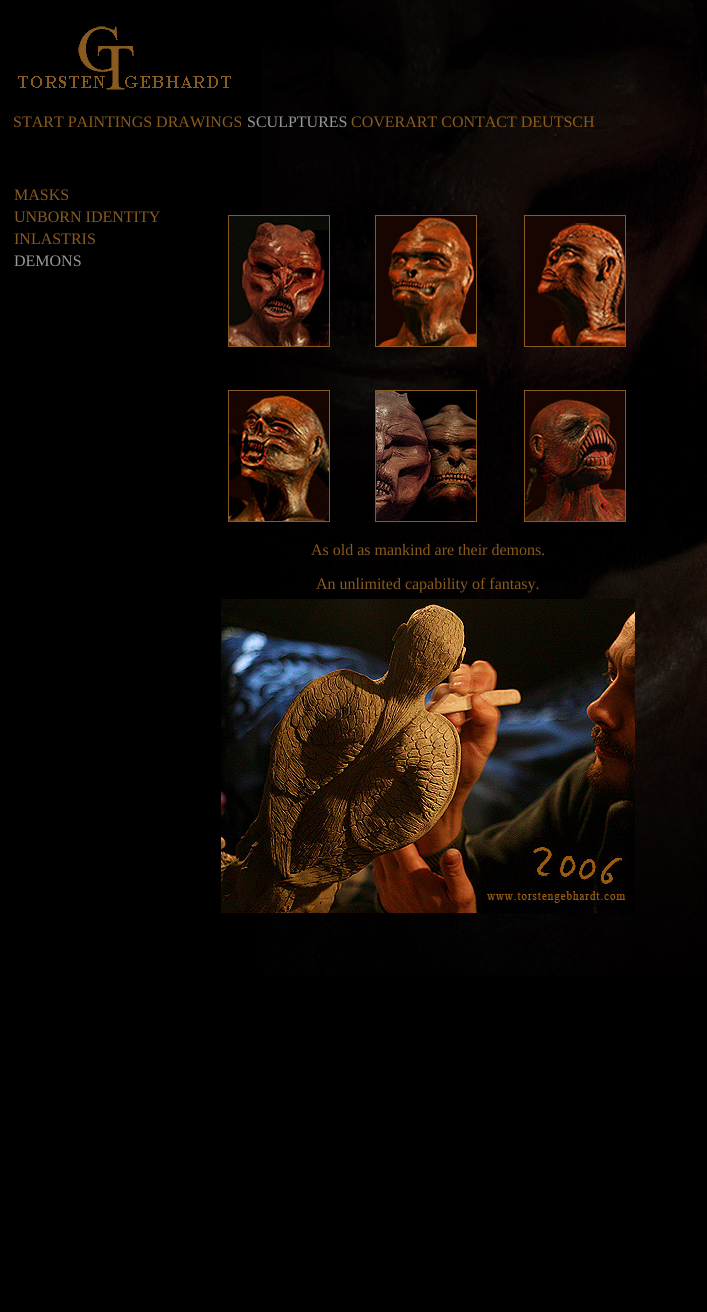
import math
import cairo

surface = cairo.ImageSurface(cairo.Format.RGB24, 707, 1312)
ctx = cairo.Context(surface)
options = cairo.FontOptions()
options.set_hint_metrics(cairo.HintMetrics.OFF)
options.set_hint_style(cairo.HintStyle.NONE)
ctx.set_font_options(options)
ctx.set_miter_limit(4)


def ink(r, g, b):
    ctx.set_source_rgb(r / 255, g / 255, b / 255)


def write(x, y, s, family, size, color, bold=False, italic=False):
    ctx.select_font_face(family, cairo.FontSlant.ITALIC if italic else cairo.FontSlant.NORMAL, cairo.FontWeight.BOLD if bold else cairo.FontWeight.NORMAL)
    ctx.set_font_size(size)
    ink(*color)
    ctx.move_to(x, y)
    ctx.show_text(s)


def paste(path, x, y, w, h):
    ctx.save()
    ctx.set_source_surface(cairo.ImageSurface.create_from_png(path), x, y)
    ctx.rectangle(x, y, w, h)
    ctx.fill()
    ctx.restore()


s1 = dict(family="Liberation Serif", size=16, color=(138, 91, 30))
s2 = dict(family="Liberation Serif", size=16, color=(153, 153, 153))

ink(0, 0, 0)
ctx.paint()
paste("pic1.png", 262, 0, 445, 976)
paste("pic2.png", 18, 26, 213, 64)
write(13, 127, "START PAINTINGS DRAWINGS", **s1)
write(247, 127, "SCULPTURES", **s2)
write(351, 127, "COVERART CONTACT DEUTSCH", **s1)
write(14, 200, "MASKS", **s1)
write(14, 222, "UNBORN IDENTITY", **s1)
write(14, 244, "INLASTRIS", **s1)
write(14, 266, "DEMONS", **s2)
ctx.rectangle(228.5, 215.5, 101, 131)
ink(138, 91, 30)
ctx.set_line_width(1)
ctx.stroke()
paste("pic3.png", 229, 216, 100, 130)
ctx.rectangle(375.5, 215.5, 101, 131)
ctx.stroke()
paste("pic4.png", 376, 216, 100, 130)
ctx.rectangle(524.5, 215.5, 101, 131)
ctx.stroke()
paste("pic5.png", 525, 216, 100, 130)
ctx.rectangle(228.5, 390.5, 101, 131)
ctx.stroke()
paste("pic6.png", 229, 391, 100, 130)
ctx.rectangle(375.5, 390.5, 101, 131)
ctx.stroke()
paste("pic7.png", 376, 391, 100, 130)
ctx.rectangle(524.5, 390.5, 101, 131)
ctx.stroke()
paste("pic8.png", 525, 391, 100, 130)
write(311, 555, "As old as mankind are their demons.", **s1)
write(316, 589, "An unlimited capability of fantasy.", **s1)
paste("pic9.png", 221, 599, 414, 314)
surface.write_to_png("screenshot.png")
